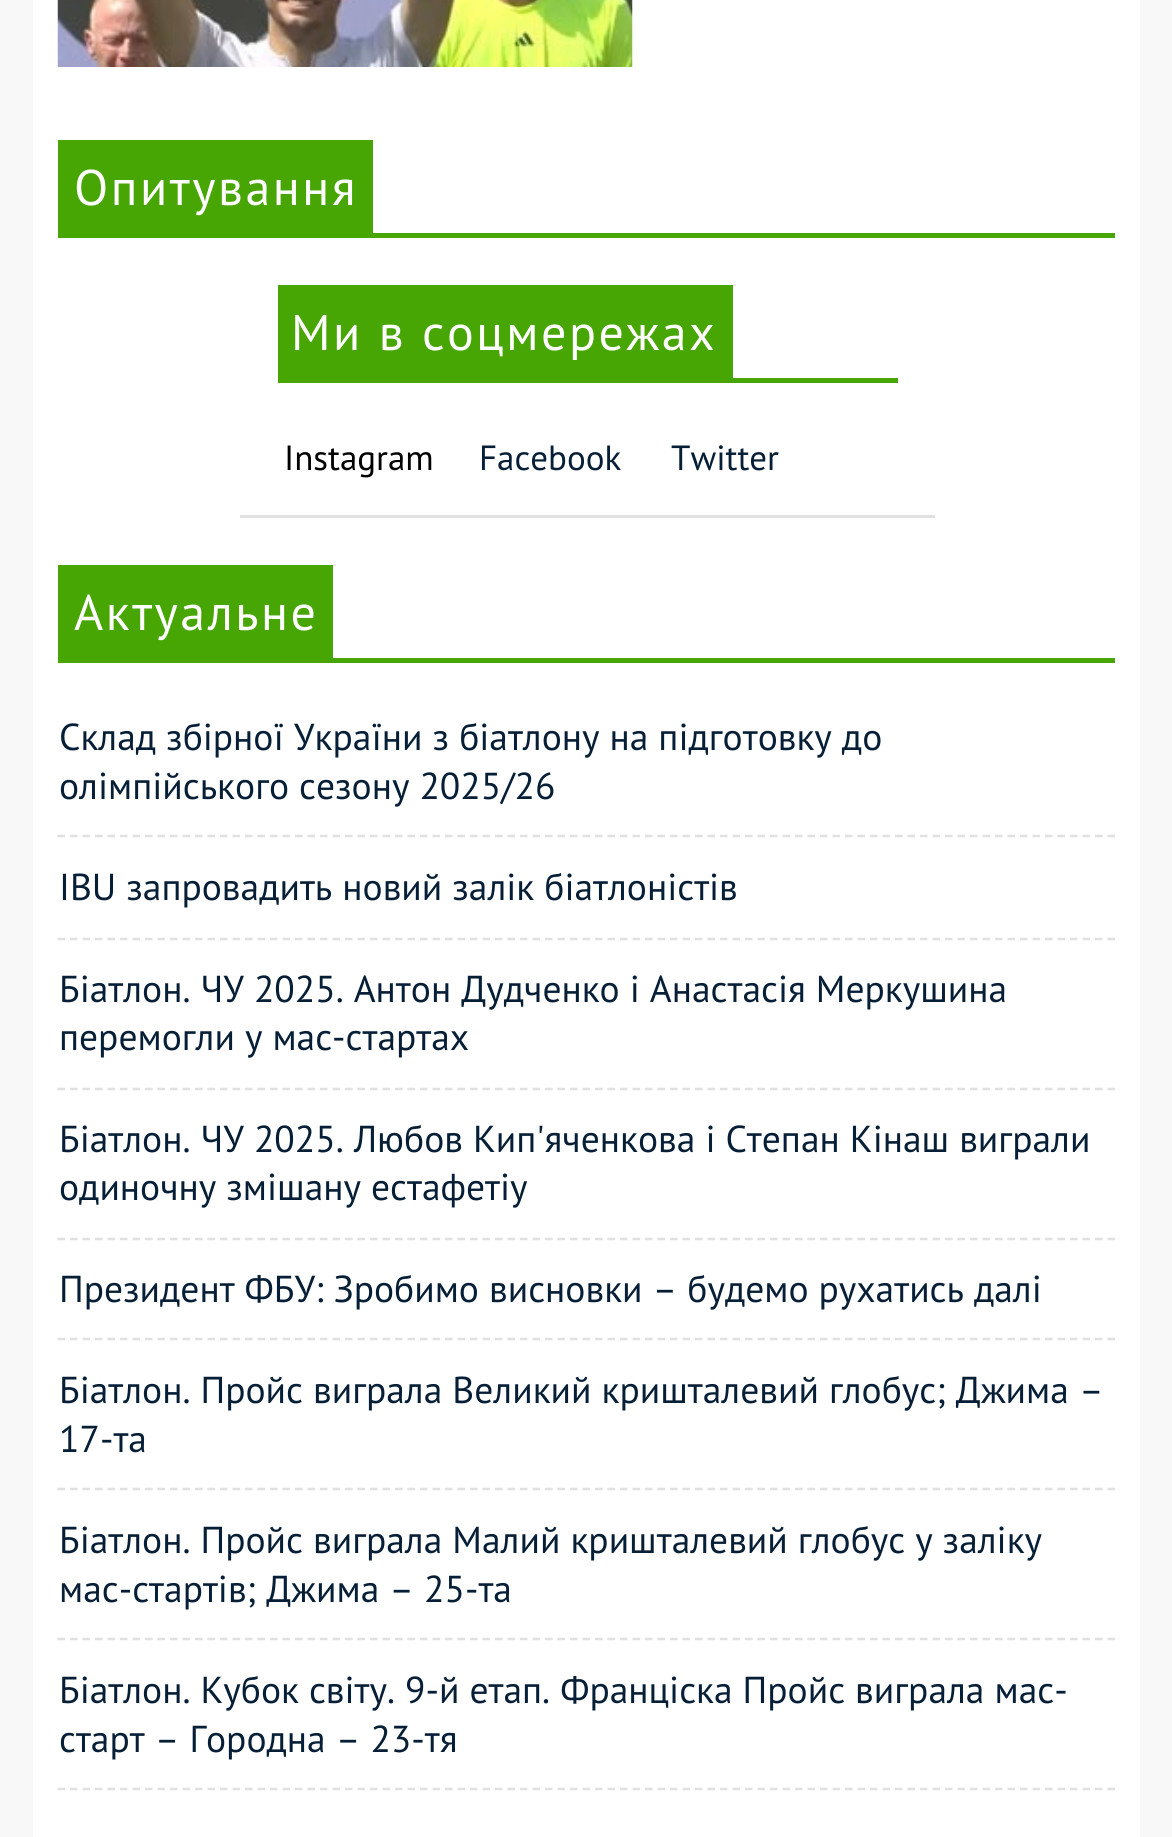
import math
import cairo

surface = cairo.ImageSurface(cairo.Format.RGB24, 1172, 1837)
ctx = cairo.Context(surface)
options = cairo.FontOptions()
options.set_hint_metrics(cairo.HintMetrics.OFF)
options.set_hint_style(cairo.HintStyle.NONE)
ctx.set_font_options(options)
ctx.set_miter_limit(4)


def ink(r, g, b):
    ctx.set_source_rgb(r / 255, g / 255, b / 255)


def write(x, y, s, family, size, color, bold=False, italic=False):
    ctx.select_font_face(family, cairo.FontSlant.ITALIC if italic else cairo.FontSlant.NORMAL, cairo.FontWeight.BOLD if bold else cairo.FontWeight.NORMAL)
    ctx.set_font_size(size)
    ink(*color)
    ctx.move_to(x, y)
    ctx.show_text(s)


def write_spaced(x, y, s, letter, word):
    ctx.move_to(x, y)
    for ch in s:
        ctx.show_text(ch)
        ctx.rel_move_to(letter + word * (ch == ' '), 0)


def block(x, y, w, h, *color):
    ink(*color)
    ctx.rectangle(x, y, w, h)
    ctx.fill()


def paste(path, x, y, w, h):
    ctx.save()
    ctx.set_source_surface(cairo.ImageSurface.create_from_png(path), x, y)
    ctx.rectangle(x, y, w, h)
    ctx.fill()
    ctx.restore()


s1 = dict(family="PT Sans", size=35, color=(0, 0, 0))
s2 = dict(family="PT Sans", size=35, color=(6, 31, 55))
s3 = dict(family="PT Sans", size=37.5, color=(6, 31, 55))

ink(248, 248, 248)
ctx.paint()
block(33, 0, 1107, 1837, 255, 255, 255)
paste("pic1.png", 57, 0, 576, 67)
block(58, 233, 1057, 5, 71, 166, 3)
block(58, 140, 315, 93, 71, 166, 3)
ctx.select_font_face("PT Sans")
ctx.set_font_size(50)
ink(255, 255, 255)
write_spaced(74, 205, "Опитування", 2.5, 0)
block(278, 378, 620, 5, 71, 166, 3)
block(278, 285, 455, 93, 71, 166, 3)
ink(255, 255, 255)
write_spaced(291, 350, "Ми в соцмережах", 2.5, 0)
block(240, 515, 695, 3, 225, 225, 225)
write(284, 470, "Instagram", **s1)
write(479, 470, "Facebook", **s2)
write(671, 470, "Twitter", **s2)
block(58, 658, 1057, 5, 71, 166, 3)
block(58, 565, 275, 93, 71, 166, 3)
ctx.set_font_size(50)
ink(255, 255, 255)
write_spaced(74, 630, "Актуальне", 2.5, 0)
ctx.new_path()
ctx.move_to(57.5, 836)
ctx.line_to(1115, 836)
ink(225, 225, 225)
ctx.set_line_width(2.5)
ctx.set_dash([7.5, 5])
ctx.stroke()
write(59, 750, "Склад збірної України з біатлону на підготовку до", **s3)
write(59, 799, "олімпійського сезону 2025/26", **s3)
ctx.new_path()
ctx.move_to(57.5, 939)
ctx.line_to(1115, 939)
ink(225, 225, 225)
ctx.stroke()
write(59, 900, "IBU запровадить новий залік біатлоністів", **s3)
ctx.new_path()
ctx.move_to(57.5, 1089)
ctx.line_to(1115, 1089)
ink(225, 225, 225)
ctx.stroke()
write(59, 1002, "Біатлон. ЧУ 2025. Антон Дудченко і Анастасія Меркушина", **s3)
write(59, 1050, "перемогли у мас-стартах", **s3)
ctx.new_path()
ctx.move_to(57.5, 1239)
ctx.line_to(1115, 1239)
ink(225, 225, 225)
ctx.stroke()
write(59, 1152, "Біатлон. ЧУ 2025. Любов Кип'яченкова і Степан Кінаш виграли", **s3)
write(59, 1200, "одиночну змішану естафетіу", **s3)
ctx.new_path()
ctx.move_to(57.5, 1339)
ctx.line_to(1115, 1339)
ink(225, 225, 225)
ctx.stroke()
write(59, 1302, "Президент ФБУ: Зробимо висновки – будемо рухатись далі", **s3)
ctx.new_path()
ctx.move_to(57.5, 1489)
ctx.line_to(1115, 1489)
ink(225, 225, 225)
ctx.stroke()
write(59, 1403, "Біатлон. Пройс виграла Великий кришталевий глобус; Джима –", **s3)
write(59, 1452, "17-та", **s3)
ctx.new_path()
ctx.move_to(57.5, 1639)
ctx.line_to(1115, 1639)
ink(225, 225, 225)
ctx.stroke()
write(59, 1553, "Біатлон. Пройс виграла Малий кришталевий глобус у заліку", **s3)
write(59, 1602, "мас-стартів; Джима – 25-та", **s3)
ctx.new_path()
ctx.move_to(57.5, 1789)
ctx.line_to(1115, 1789)
ink(225, 225, 225)
ctx.stroke()
write(59, 1703, "Біатлон. Кубок світу. 9-й етап. Франціска Пройс виграла мас-", **s3)
write(59, 1752, "старт – Городна – 23-тя", **s3)
surface.write_to_png("screenshot.png")
